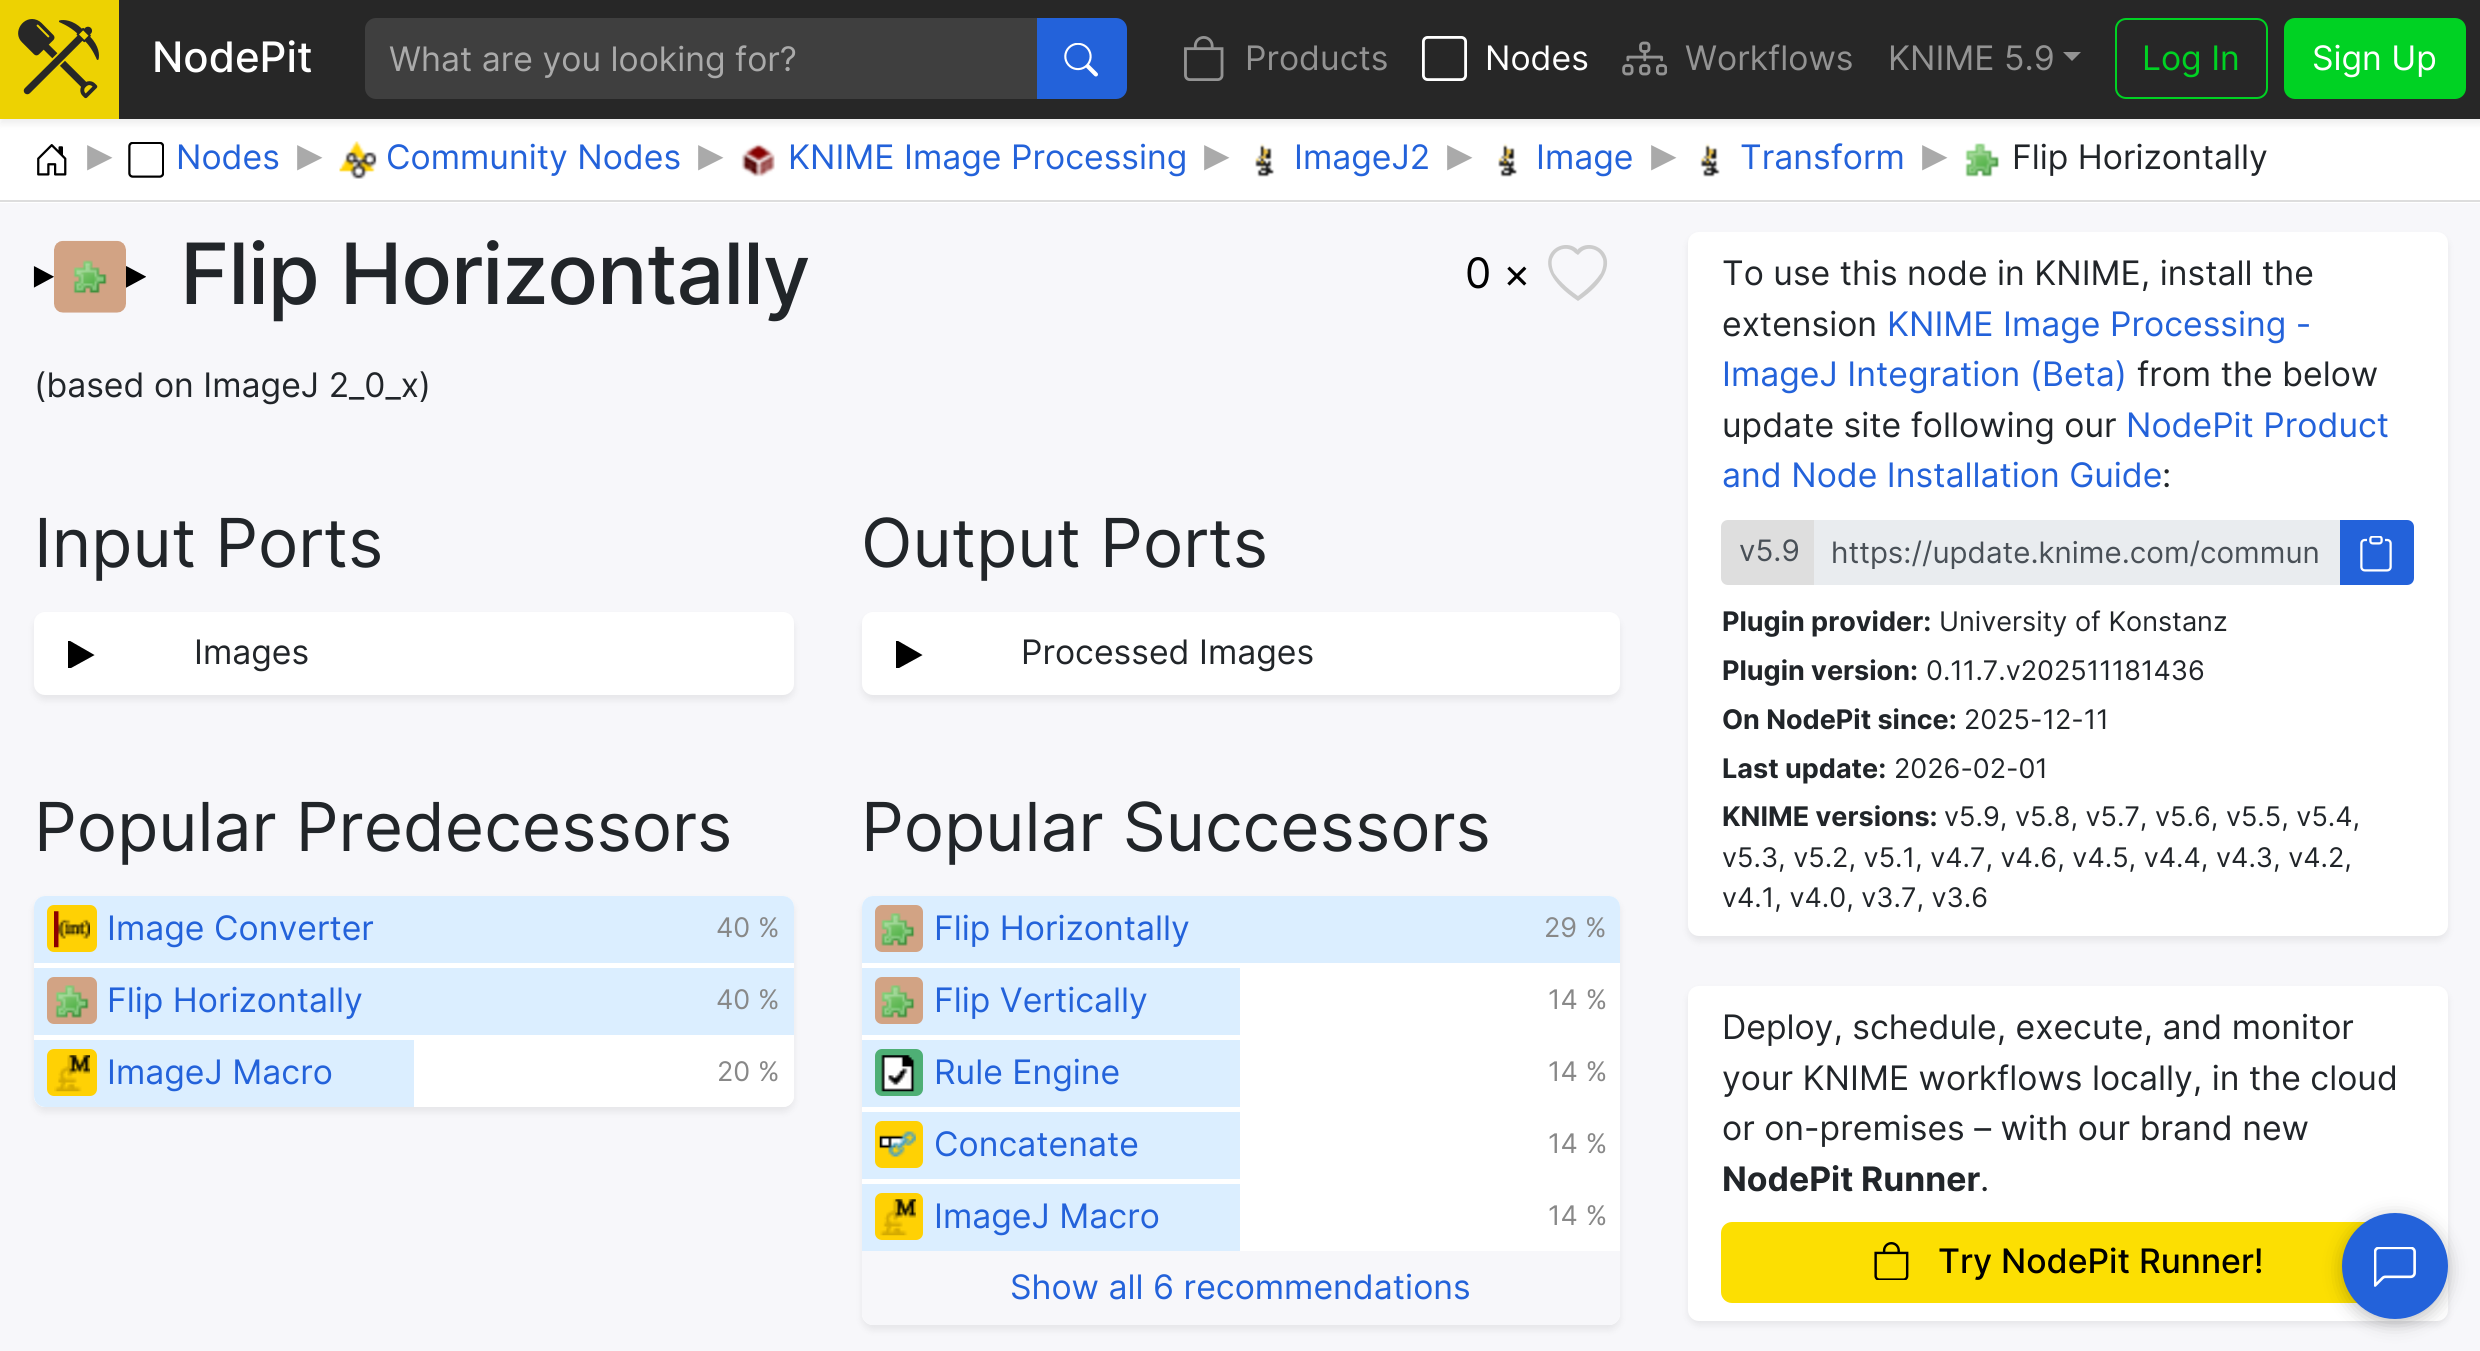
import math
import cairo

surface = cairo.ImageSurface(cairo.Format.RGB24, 2480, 1351)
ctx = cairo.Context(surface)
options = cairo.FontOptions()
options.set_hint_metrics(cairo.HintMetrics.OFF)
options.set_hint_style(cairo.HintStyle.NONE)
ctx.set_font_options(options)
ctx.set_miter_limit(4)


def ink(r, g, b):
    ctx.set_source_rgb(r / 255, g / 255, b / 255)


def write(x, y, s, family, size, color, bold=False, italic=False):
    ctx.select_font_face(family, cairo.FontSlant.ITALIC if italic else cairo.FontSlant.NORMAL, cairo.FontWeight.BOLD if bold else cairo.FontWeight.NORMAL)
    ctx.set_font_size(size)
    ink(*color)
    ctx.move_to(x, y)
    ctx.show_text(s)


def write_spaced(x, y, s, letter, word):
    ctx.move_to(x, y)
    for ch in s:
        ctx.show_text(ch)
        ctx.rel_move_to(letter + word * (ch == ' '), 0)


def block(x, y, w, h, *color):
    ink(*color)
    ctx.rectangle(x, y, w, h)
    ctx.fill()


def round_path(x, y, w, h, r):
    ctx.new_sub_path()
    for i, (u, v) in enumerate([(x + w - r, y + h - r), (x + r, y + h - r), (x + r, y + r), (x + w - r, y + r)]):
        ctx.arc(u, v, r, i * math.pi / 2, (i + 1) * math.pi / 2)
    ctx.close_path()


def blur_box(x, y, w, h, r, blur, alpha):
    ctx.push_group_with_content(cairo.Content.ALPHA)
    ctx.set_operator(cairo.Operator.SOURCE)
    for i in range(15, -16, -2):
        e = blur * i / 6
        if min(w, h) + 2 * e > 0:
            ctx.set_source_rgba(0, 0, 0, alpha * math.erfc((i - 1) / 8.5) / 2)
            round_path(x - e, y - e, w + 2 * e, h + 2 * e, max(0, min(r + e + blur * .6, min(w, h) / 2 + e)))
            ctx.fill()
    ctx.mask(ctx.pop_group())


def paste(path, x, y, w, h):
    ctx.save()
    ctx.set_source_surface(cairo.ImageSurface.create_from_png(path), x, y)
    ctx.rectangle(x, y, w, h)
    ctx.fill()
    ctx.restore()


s1 = dict(family="Inter Medium", size=42, color=(255, 255, 255))
s2 = dict(family="Inter", size=33.75, color=(170, 170, 170))
s3 = dict(family="Inter", size=33.75, color=(147, 147, 147))
s4 = dict(family="Inter", size=33.75, color=(255, 255, 255))
s5 = dict(family="Inter", size=33.75, color=(0, 210, 35))
s6 = dict(family="DejaVu Sans", size=51, color=(170, 170, 170))
s7 = dict(family="Inter", size=33.75, color=(35, 98, 218))
s8 = dict(family="Inter", size=33.75, color=(33, 37, 41))
s9 = dict(family="Inter", size=42, color=(0, 0, 0))
s10 = dict(family="Inter", size=67.5, color=(33, 37, 41))
s11 = dict(family="Inter", size=27, color=(136, 136, 136))
s12 = dict(family="Inter", size=29.5, color=(73, 80, 87))
s13 = dict(family="Inter", size=27, color=(33, 37, 41), bold=True)
s14 = dict(family="Inter", size=27, color=(33, 37, 41))
s15 = dict(family="Inter", size=33.75, color=(33, 37, 41), bold=True)
s16 = dict(family="Inter Medium", size=33.75, color=(0, 0, 0))

ink(247, 247, 250)
ctx.paint()
block(0, 119, 2480, 84, 255, 255, 255)
ink(0, 0, 0)
blur_box(0, 5, 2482, 119, 0, 4, 0.07)
block(119, 0, 2361, 119, 39, 39, 39)
block(0, 0, 119, 119, 237, 210, 2)
paste("pic1.png", 18, 19, 81, 80)
write(152, 72, "NodePit", **s1)
ink(63, 63, 63)
ctx.new_path()
ctx.move_to(376, 18)
ctx.line_to(1040, 18)
ctx.line_to(1040, 99)
ctx.line_to(376, 99)
ctx.curve_to(370, 99, 365, 94, 365, 88)
ctx.line_to(365, 29)
ctx.curve_to(365, 23, 370, 18, 376, 18)
ctx.close_path()
ctx.fill()
write(389, 71, "What are you looking for?", **s2)
ink(35, 98, 218)
ctx.new_path()
ctx.move_to(1038, 19)
ctx.line_to(1116, 19)
ctx.curve_to(1121.5, 19, 1126, 23.5, 1126, 29)
ctx.line_to(1126, 88)
ctx.curve_to(1126, 93.5, 1121.5, 98, 1116, 98)
ctx.line_to(1038, 98)
ctx.close_path()
ctx.fill_preserve()
ctx.stroke()
paste("pic2.png", 1064, 43, 34, 34)
paste("pic3.png", 1184, 36, 40, 45)
write(1245, 70, "Products", **s3)
paste("pic4.png", 1422, 36, 45, 45)
write(1485, 70, "Nodes", **s4)
paste("pic5.png", 1622, 41, 45, 35)
write(1685, 70, "Workflows", **s3)
write(1888, 70, "KNIME 5.9", **s3)
ctx.new_path()
ctx.move_to(2063, 52)
ctx.line_to(2081, 52)
ctx.line_to(2072, 61)
ctx.close_path()
ctx.fill()
round_path(2116, 19, 151, 79, 10)
ink(0, 210, 35)
ctx.stroke()
write(2142, 70, "Log In", **s5)
round_path(2285, 19, 180, 79, 10)
ctx.fill_preserve()
ctx.stroke()
write(2312, 70, "Sign Up", **s4)
block(0, 200, 2480, 2, 221, 221, 221)
paste("pic6.png", 37, 144, 30, 32)
write(87, 171, "▸", **s6)
paste("pic7.png", 128, 142, 36, 36)
write(176, 169, "Nodes", **s7)
write(297, 171, "▸", **s6)
paste("pic8.png", 339, 141, 38, 38)
write(386, 169, "Community Nodes", **s7)
write(698, 171, "▸", **s6)
paste("pic9.png", 741, 143, 34, 34)
write(788, 169, "KNIME Image Processing", **s7)
write(1204, 171, "▸", **s6)
paste("pic10.png", 1255, 143, 20, 34)
write(1294, 169, "ImageJ2", **s7)
write(1447, 171, "▸", **s6)
paste("pic10.png", 1498, 143, 20, 34)
write(1536, 169, "Image", **s7)
write(1651, 171, "▸", **s6)
paste("pic11.png", 1700, 143, 20, 34)
write(1740, 169, "Transform", **s7)
write(1922, 171, "▸", **s6)
paste("pic12.png", 1965, 143, 35, 34)
write(2012, 169, "Flip Horizontally", **s8)
paste("pic13.png", 33, 240, 113, 73)
ctx.select_font_face("Inter Medium")
ctx.set_font_size(84.5)
write_spaced(180, 304, "Flip Horizontally", -1.25, 0)
write(1465, 288, "0 ×", **s9)
ink(204, 204, 204)
ctx.new_path()
ctx.move_to(1578, 255)
ctx.line_to(1575, 253)
ctx.curve_to(1569, 246, 1557, 248, 1553, 257)
ctx.curve_to(1551, 260, 1551, 266, 1554, 273)
ctx.curve_to(1558, 279, 1565, 287, 1578, 296)
ctx.curve_to(1590, 287, 1597, 279, 1601, 273)
ctx.curve_to(1604, 266, 1604, 260, 1602, 257)
ctx.curve_to(1598, 248, 1586, 246, 1580, 253)
ctx.close_path()
ctx.move_to(1578, 301)
ctx.curve_to(1521, 263, 1560, 234, 1577, 249)
ctx.line_to(1578, 250)
ctx.line_to(1578, 249)
ctx.curve_to(1595, 234, 1634, 263, 1578, 301)
ctx.close_path()
ctx.fill()
write(34, 397, "(based on ImageJ 2_0_x)", **s8)
write(34, 567, "Input Ports", **s10)
ink(0, 0, 0)
blur_box(34, 617, 760, 83, 11, 4, 0.07)
ink(255, 255, 255)
ctx.new_path()
ctx.move_to(45, 612)
ctx.line_to(160, 612)
ctx.line_to(160, 695)
ctx.line_to(45, 695)
ctx.curve_to(39, 695, 34, 690, 34, 684)
ctx.line_to(34, 623)
ctx.curve_to(34, 617, 39, 612, 45, 612)
ctx.close_path()
ctx.fill()
ink(0, 0, 0)
ctx.new_path()
ctx.move_to(70, 643.5)
ctx.line_to(90, 655)
ctx.line_to(70, 666)
ctx.close_path()
ctx.fill()
ctx.save()
ctx.rectangle(68, 641, 27, 27)
ctx.clip()
ctx.new_path()
ctx.move_to(70, 643.5)
ctx.line_to(90, 655)
ctx.line_to(70, 666)
ctx.close_path()
ctx.set_line_width(4.5)
ctx.stroke()
ctx.restore()
ink(255, 255, 255)
ctx.new_path()
ctx.move_to(160, 612)
ctx.line_to(783, 612)
ctx.curve_to(789, 612, 794, 617, 794, 623)
ctx.line_to(794, 684)
ctx.curve_to(794, 690, 789, 695, 783, 695)
ctx.line_to(160, 695)
ctx.close_path()
ctx.fill()
write(194, 664, "Images", **s8)
write(861, 567, "Output Ports", **s10)
ink(0, 0, 0)
blur_box(862, 617, 758, 83, 11, 4, 0.07)
ink(255, 255, 255)
ctx.new_path()
ctx.move_to(873, 612)
ctx.line_to(988, 612)
ctx.line_to(988, 695)
ctx.line_to(873, 695)
ctx.curve_to(867, 695, 862, 690, 862, 684)
ctx.line_to(862, 623)
ctx.curve_to(862, 617, 867, 612, 873, 612)
ctx.close_path()
ctx.fill()
ink(0, 0, 0)
ctx.new_path()
ctx.move_to(898, 643.5)
ctx.line_to(918, 655)
ctx.line_to(898, 666)
ctx.close_path()
ctx.fill()
ctx.save()
ctx.rectangle(896, 641, 27, 27)
ctx.clip()
ctx.new_path()
ctx.move_to(898, 643.5)
ctx.line_to(918, 655)
ctx.line_to(898, 666)
ctx.close_path()
ctx.set_line_width(4.5)
ctx.stroke()
ctx.restore()
ink(255, 255, 255)
ctx.new_path()
ctx.move_to(988, 612)
ctx.line_to(1609, 612)
ctx.curve_to(1615, 612, 1620, 617, 1620, 623)
ctx.line_to(1620, 684)
ctx.curve_to(1620, 690, 1615, 695, 1609, 695)
ctx.line_to(988, 695)
ctx.close_path()
ctx.fill()
write(1021, 664, "Processed Images", **s8)
write(34, 851, "Popular Predecessors", **s10)
ink(0, 0, 0)
blur_box(34, 900, 760, 212, 11, 4, 0.07)
ink(255, 255, 255)
round_path(34, 896, 760, 211, 11)
ctx.fill()
ink(219, 238, 255)
ctx.new_path()
ctx.move_to(45, 896)
ctx.line_to(783, 896)
ctx.curve_to(789, 896, 794, 901, 794, 907)
ctx.line_to(794, 963)
ctx.line_to(34, 963)
ctx.line_to(34, 907)
ctx.curve_to(34, 901, 39, 896, 45, 896)
ctx.close_path()
ctx.fill()
ink(255, 209, 4)
round_path(47, 905, 50, 47, 7)
ctx.fill()
paste("pic14.png", 54, 911, 36, 37)
write(107, 940, "Image Converter", **s7)
write(716, 937, "40 %", **s11)
block(34, 968, 760, 67, 219, 238, 255)
ink(210, 163, 132)
round_path(47, 977, 50, 47, 7)
ctx.fill()
paste("pic15.png", 55, 985, 34, 33)
write(107, 1012, "Flip Horizontally", **s7)
write(716, 1009, "40 %", **s11)
ink(255, 255, 255)
ctx.new_path()
ctx.move_to(34, 1040)
ctx.line_to(794, 1040)
ctx.line_to(794, 1096)
ctx.curve_to(794, 1102, 789, 1107, 783, 1107)
ctx.line_to(45, 1107)
ctx.curve_to(39, 1107, 34, 1102, 34, 1096)
ctx.close_path()
ctx.fill()
ink(219, 238, 255)
ctx.new_path()
ctx.move_to(34, 1040)
ctx.line_to(414, 1040)
ctx.line_to(414, 1107)
ctx.line_to(45, 1107)
ctx.curve_to(39, 1107, 34, 1102, 34, 1096)
ctx.close_path()
ctx.fill()
ink(255, 209, 4)
round_path(47, 1049, 50, 47, 7)
ctx.fill()
paste("pic16.png", 54, 1055, 36, 37)
write(107, 1084, "ImageJ Macro", **s7)
write(717, 1081, "20 %", **s11)
write(861, 851, "Popular Successors", **s10)
ink(0, 0, 0)
blur_box(862, 900, 758, 430, 11, 4, 0.07)
ink(255, 255, 255)
round_path(862, 896, 758, 429, 11)
ctx.fill()
ink(219, 238, 255)
ctx.new_path()
ctx.move_to(873, 896)
ctx.line_to(1609, 896)
ctx.curve_to(1615, 896, 1620, 901, 1620, 907)
ctx.line_to(1620, 963)
ctx.line_to(862, 963)
ctx.line_to(862, 907)
ctx.curve_to(862, 901, 867, 896, 873, 896)
ctx.close_path()
ctx.fill()
ink(210, 163, 132)
round_path(875, 905, 48, 47, 7)
ctx.fill()
paste("pic17.png", 881, 913, 34, 33)
write(934, 940, "Flip Horizontally", **s7)
write(1544, 937, "29 %", **s11)
block(862, 968, 378, 67, 219, 238, 255)
ink(210, 163, 132)
round_path(875, 977, 48, 47, 7)
ctx.fill()
paste("pic17.png", 881, 985, 34, 33)
write(934, 1012, "Flip Vertically", **s7)
write(1548, 1009, "14 %", **s11)
block(862, 1040, 378, 67, 219, 238, 255)
ink(78, 175, 117)
round_path(875, 1049, 48, 47, 7)
ctx.fill()
paste("pic18.png", 881, 1055, 34, 37)
write(934, 1084, "Rule Engine", **s7)
write(1548, 1081, "14 %", **s11)
block(862, 1112, 378, 67, 219, 238, 255)
ink(255, 209, 4)
round_path(875, 1121, 48, 47, 7)
ctx.fill()
paste("pic19.png", 879, 1131, 37, 27)
write(934, 1156, "Concatenate", **s7)
write(1548, 1153, "14 %", **s11)
block(862, 1184, 378, 67, 219, 238, 255)
ink(255, 209, 4)
round_path(875, 1193, 48, 47, 7)
ctx.fill()
paste("pic20.png", 880, 1199, 36, 37)
write(934, 1228, "ImageJ Macro", **s7)
write(1548, 1225, "14 %", **s11)
ink(247, 247, 250)
ctx.new_path()
ctx.move_to(862, 1251)
ctx.line_to(1620, 1251)
ctx.line_to(1620, 1314)
ctx.curve_to(1620, 1320, 1615, 1325, 1609, 1325)
ctx.line_to(873, 1325)
ctx.curve_to(867, 1325, 862, 1320, 862, 1314)
ctx.close_path()
ctx.fill()
write(1010, 1299, "Show all 6 recommendations", **s7)
ink(0, 0, 0)
blur_box(1688, 236, 760, 705, 11, 4, 0.07)
ink(255, 255, 255)
round_path(1688, 232, 760, 704, 11)
ctx.fill()
write(1722, 285, "To use this node in KNIME, install the", **s8)
write(1722, 336, "extension", **s8)
write(1887, 336, "KNIME Image Processing -", **s7)
write(1722, 386, "ImageJ Integration (Beta)", **s7)
write(2137, 386, "from the below", **s8)
write(1722, 437, "update site following our", **s8)
write(2126, 437, "NodePit Product", **s7)
write(1722, 487, "and Node Installation Guide", **s7)
write(2162, 487, ":", **s8)
ink(222, 222, 222)
ctx.new_path()
ctx.move_to(1728, 520)
ctx.line_to(1816, 520)
ctx.line_to(1816, 585)
ctx.line_to(1728, 585)
ctx.curve_to(1724, 585, 1721, 582, 1721, 578)
ctx.line_to(1721, 527)
ctx.curve_to(1721, 523, 1724, 520, 1728, 520)
ctx.close_path()
ctx.fill()
write(1739, 561, "v5.9", **s12)
block(1814, 520, 526, 65, 233, 236, 239)
ctx.save()
ctx.rectangle(1832, 533, 492, 36)
ctx.clip()
write(1831, 563, "https://update.knime.com/commun", **s12)
ctx.restore()
ink(35, 98, 218)
ctx.new_path()
ctx.move_to(2341, 521)
ctx.line_to(2407, 521)
ctx.curve_to(2410.5, 521, 2413, 523.5, 2413, 527)
ctx.line_to(2413, 578)
ctx.curve_to(2413, 581.5, 2410.5, 584, 2407, 584)
ctx.line_to(2341, 584)
ctx.close_path()
ctx.fill_preserve()
ctx.stroke()
paste("pic21.png", 2360, 536, 32, 36)
write(1722, 631, "Plugin provider:", **s13)
write(1939, 631, "University of Konstanz", **s14)
write(1722, 680, "Plugin version:", **s13)
write(1926, 680, "0.11.7.v202511181436", **s14)
write(1722, 729, "On NodePit since:", **s13)
write(1964, 729, "2025-12-11", **s14)
write(1722, 778, "Last update:", **s13)
write(1894, 778, "2026-02-01", **s14)
write(1722, 826, "KNIME versions:", **s13)
write(1944, 826, "v5.9, v5.8, v5.7, v5.6, v5.5, v5.4,", **s14)
write(1722, 867, "v5.3, v5.2, v5.1, v4.7, v4.6, v4.5, v4.4, v4.3, v4.2,", **s14)
write(1722, 907, "v4.1, v4.0, v3.7, v3.6", **s14)
ink(0, 0, 0)
blur_box(1688, 990, 760, 335, 11, 4, 0.07)
ink(255, 255, 255)
round_path(1688, 986, 760, 335, 11)
ctx.fill()
write(1722, 1039, "Deploy, schedule, execute, and monitor", **s8)
write(1722, 1090, "your KNIME workflows locally, in the cloud", **s8)
write(1722, 1140, "or on-premises – with our brand new", **s8)
write(1722, 1191, "NodePit Runner", **s15)
write(1980, 1191, ".", **s8)
ink(252, 223, 2)
round_path(1722, 1223, 691, 79, 10)
ctx.fill_preserve()
ctx.stroke()
paste("pic22.png", 1874, 1242, 35, 38)
write(1938, 1273, "Try NodePit Runner!", **s16)
ink(0, 0, 0)
blur_box(2342, 1217, 106, 106, 53, 9.5, 0.25)
ink(35, 98, 218)
ctx.arc(2395, 1266, 53, 0, 2 * math.pi)
ctx.fill()
paste("pic23.png", 2374, 1247, 42, 40)
surface.write_to_png("screenshot.png")
